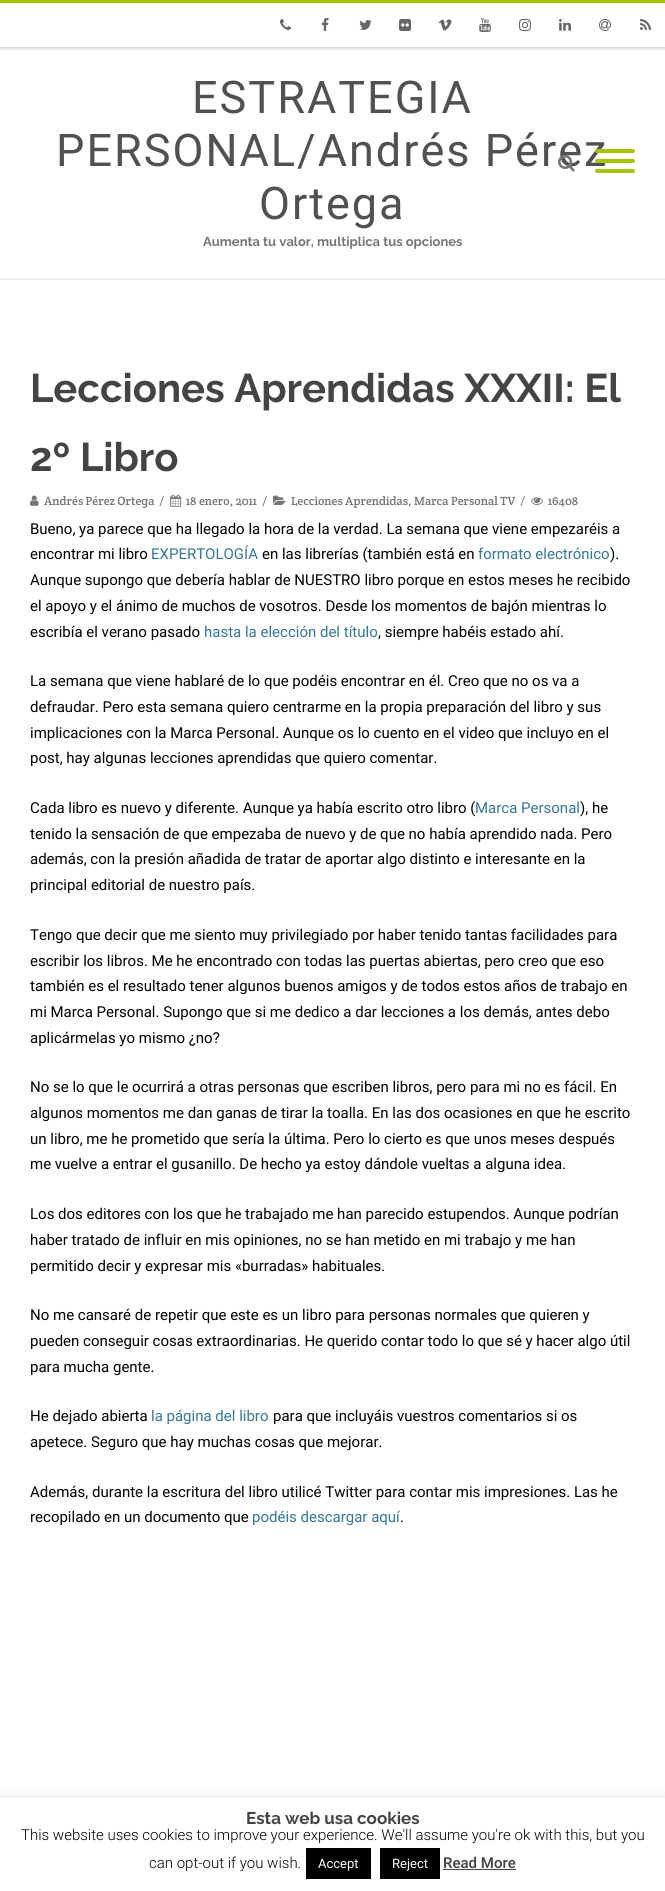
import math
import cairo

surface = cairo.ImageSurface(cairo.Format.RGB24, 665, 1891)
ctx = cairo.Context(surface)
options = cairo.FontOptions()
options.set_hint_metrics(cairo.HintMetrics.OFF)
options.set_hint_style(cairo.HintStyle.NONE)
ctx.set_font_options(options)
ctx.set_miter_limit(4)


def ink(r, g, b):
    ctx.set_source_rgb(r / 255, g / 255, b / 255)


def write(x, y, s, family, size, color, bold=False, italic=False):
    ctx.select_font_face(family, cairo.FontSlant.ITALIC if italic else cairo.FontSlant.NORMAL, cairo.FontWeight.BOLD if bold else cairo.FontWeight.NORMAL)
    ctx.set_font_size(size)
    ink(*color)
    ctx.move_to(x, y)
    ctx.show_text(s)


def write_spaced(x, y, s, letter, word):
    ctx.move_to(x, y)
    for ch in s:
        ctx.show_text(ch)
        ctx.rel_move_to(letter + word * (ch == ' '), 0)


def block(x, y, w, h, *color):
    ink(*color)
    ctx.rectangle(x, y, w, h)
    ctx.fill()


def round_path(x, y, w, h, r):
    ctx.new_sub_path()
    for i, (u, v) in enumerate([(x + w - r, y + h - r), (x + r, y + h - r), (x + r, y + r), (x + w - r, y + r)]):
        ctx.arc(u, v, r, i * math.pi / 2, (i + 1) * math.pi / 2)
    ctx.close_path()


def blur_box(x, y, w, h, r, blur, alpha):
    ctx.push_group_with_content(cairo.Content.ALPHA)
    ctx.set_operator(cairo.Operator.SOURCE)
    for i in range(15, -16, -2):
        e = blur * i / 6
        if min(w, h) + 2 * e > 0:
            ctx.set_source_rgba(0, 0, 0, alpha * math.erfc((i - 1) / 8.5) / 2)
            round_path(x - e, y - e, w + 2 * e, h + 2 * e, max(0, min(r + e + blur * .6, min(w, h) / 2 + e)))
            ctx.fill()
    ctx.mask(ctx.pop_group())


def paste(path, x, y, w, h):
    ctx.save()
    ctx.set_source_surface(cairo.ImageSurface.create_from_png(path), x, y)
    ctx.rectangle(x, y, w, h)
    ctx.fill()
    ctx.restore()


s1 = dict(family="Raleway", size=13, color=(117, 117, 117), bold=True)
s2 = dict(family="Raleway", size=40, color=(68, 68, 68), bold=True)
s3 = dict(family="Crete Round", size=12, color=(117, 117, 117))
s4 = dict(family="Roboto", size=15, color=(0, 0, 0))
s5 = dict(family="Roboto", size=15, color=(51, 119, 153))
s6 = dict(family="Raleway", size=17, color=(68, 68, 68), bold=True)
s7 = dict(family="Roboto Light", size=15, color=(0, 0, 0))
s8 = dict(family="Roboto", size=13, color=(255, 255, 255))
s9 = dict(family="Roboto Medium", size=15, color=(68, 68, 68))

ink(255, 255, 255)
ctx.paint()
ctx.save()
ctx.rectangle(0, 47, 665, 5)
ctx.clip()
ink(167, 169, 164)
blur_box(0, 1, 665, 47, 0, 2, 0.75)
ctx.restore()
block(0, 0, 665, 3, 162, 198, 5)
paste("pic1.png", 280, 19, 11, 11)
paste("pic2.png", 321, 18, 8, 13)
paste("pic3.png", 359, 20, 13, 10)
paste("pic4.png", 399, 19, 12, 12)
paste("pic5.png", 438, 19, 14, 12)
paste("pic6.png", 479, 18, 12, 14)
paste("pic7.png", 519, 19, 12, 12)
paste("pic8.png", 559, 19, 12, 12)
paste("pic9.png", 599, 19, 12, 12)
paste("pic10.png", 640, 19, 11, 11)
ctx.select_font_face("Roboto")
ctx.set_font_size(45)
ink(81, 81, 81)
write_spaced(192, 113, "ESTRATEGIA", 2, 0)
write_spaced(56, 166, "PERSONAL/Andrés Pérez", 2, 0)
write_spaced(259, 219, "Ortega", 2, 0)
write(203, 246, "Aumenta tu valor, multiplica tus opciones", **s1)
paste("pic11.png", 558, 155, 17, 17)
ink(162, 198, 5)
round_path(595, 149, 40, 4, 2)
ctx.fill()
round_path(595, 159, 40, 4, 2)
ctx.fill()
round_path(595, 169, 40, 4, 2)
ctx.fill()
block(0, 278, 665, 2, 237, 237, 237)
write(30, 402, "Lecciones Aprendidas XXXII: El", **s2)
write(30, 471, "2º Libro", **s2)
paste("pic12.png", 30, 495, 9, 11)
write(44, 505, "Andrés Pérez Ortega", **s3)
write(159, 505, "/", **s3)
paste("pic13.png", 170, 494, 12, 13)
write(186, 505, "18 enero, 2011", **s3)
write(262, 505, "/", **s3)
paste("pic14.png", 273, 495, 13, 10)
write(291, 505, "Lecciones Aprendidas, Marca Personal TV", **s3)
write(520, 505, "/", **s3)
paste("pic15.png", 531, 497, 12, 8)
write(548, 505, "16408", **s3)
write(30, 534, "Bueno, ya parece que ha llegado la hora de la verdad. La semana que viene empezaréis a", **s4)
write(30, 559, "encontrar mi libro", **s4)
write(151, 559, "EXPERTOLOGÍA", **s5)
write(262, 559, "en las librerías (también está en", **s4)
write(478, 559, "formato electrónico", **s5)
write(610, 559, ").", **s4)
write(30, 585, "Aunque supongo que debería hablar de NUESTRO libro porque en estos meses he recibido", **s4)
write(30, 611, "el apoyo y el ánimo de muchos de vosotros. Desde los momentos de bajón mientras lo", **s4)
write(30, 637, "escribía el verano pasado", **s4)
write(204, 637, "hasta la elección del título", **s5)
write(378, 637, ", siempre habéis estado ahí.", **s4)
write(30, 686, "La semana que viene hablaré de lo que podéis encontrar en él. Creo que no os va a", **s4)
write(30, 712, "defraudar. Pero esta semana quiero centrarme en la propia preparación del libro y sus", **s4)
write(30, 738, "implicaciones con la Marca Personal. Aunque os lo cuento en el video que incluyo en el", **s4)
write(30, 763, "post, hay algunas lecciones aprendidas que quiero comentar.", **s4)
write(30, 813, "Cada libro es nuevo y diferente. Aunque ya había escrito otro libro (", **s4)
write(475, 813, "Marca Personal", **s5)
write(580, 813, "), he", **s4)
write(30, 839, "tenido la sensación de que empezaba de nuevo y de que no había aprendido nada. Pero", **s4)
write(30, 864, "además, con la presión añadida de tratar de aportar algo distinto e interesante en la", **s4)
write(30, 890, "principal editorial de nuestro país.", **s4)
write(30, 940, "Tengo que decir que me siento muy privilegiado por haber tenido tantas facilidades para", **s4)
write(30, 966, "escribir los libros. Me he encontrado con todas las puertas abiertas, pero creo que eso", **s4)
write(30, 991, "también es el resultado tener algunos buenos amigos y de todos estos años de trabajo en", **s4)
write(30, 1017, "mi Marca Personal. Supongo que si me dedico a dar lecciones a los demás, antes debo", **s4)
write(30, 1043, "aplicármelas yo mismo ¿no?", **s4)
write(30, 1092, "No se lo que le ocurrirá a otras personas que escriben libros, pero para mi no es fácil. En", **s4)
write(30, 1118, "algunos momentos me dan ganas de tirar la toalla. En las dos ocasiones en que he escrito", **s4)
write(30, 1144, "un libro, me he prometido que sería la última. Pero lo cierto es que unos meses después", **s4)
write(30, 1169, "me vuelve a entrar el gusanillo. De hecho ya estoy dándole vueltas a alguna idea.", **s4)
write(30, 1219, "Los dos editores con los que he trabajado me han parecido estupendos. Aunque podrían", **s4)
write(30, 1245, "haber tratado de influir en mis opiniones, no se han metido en mi trabajo y me han", **s4)
write(30, 1271, "permitido decir y expresar mis «burradas» habituales.", **s4)
write(30, 1320, "No me cansaré de repetir que este es un libro para personas normales que quieren y", **s4)
write(30, 1346, "pueden conseguir cosas extraordinarias. He querido contar todo lo que sé y hacer algo útil", **s4)
write(30, 1372, "para mucha gente.", **s4)
write(30, 1421, "He dejado abierta", **s4)
write(151, 1421, "la página del libro", **s5)
write(273, 1421, "para que incluyáis vuestros comentarios si os", **s4)
write(30, 1447, "apetece. Seguro que hay muchas cosas que mejorar.", **s4)
write(30, 1497, "Además, durante la escritura del libro utilicé Twitter para contar mis impresiones. Las he", **s4)
write(30, 1522, "recopilado en un documento que", **s4)
write(252, 1522, "podéis descargar aquí", **s5)
write(400, 1522, ".", **s4)
ctx.save()
ctx.rectangle(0, 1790, 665, 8)
ctx.clip()
ink(172, 171, 171)
blur_box(0, 1797, 665, 93, 0, 5, 0.3)
ctx.restore()
write(246, 1824, "Esta web usa cookies", **s6)
write(21, 1840, "This website uses cookies to improve your experience. We'll assume you're ok with this, but you", **s7)
write(149, 1868, "can opt-out if you wish.", **s7)
block(306, 1848, 65, 31, 0, 0, 0)
write(318, 1868, "Accept", **s8)
block(380, 1848, 60, 31, 0, 0, 0)
write(392, 1868, "Reject", **s8)
write(443, 1868, "Read More", **s9)
block(443, 1869, 73, 1, 68, 68, 68)
surface.write_to_png("screenshot.png")
